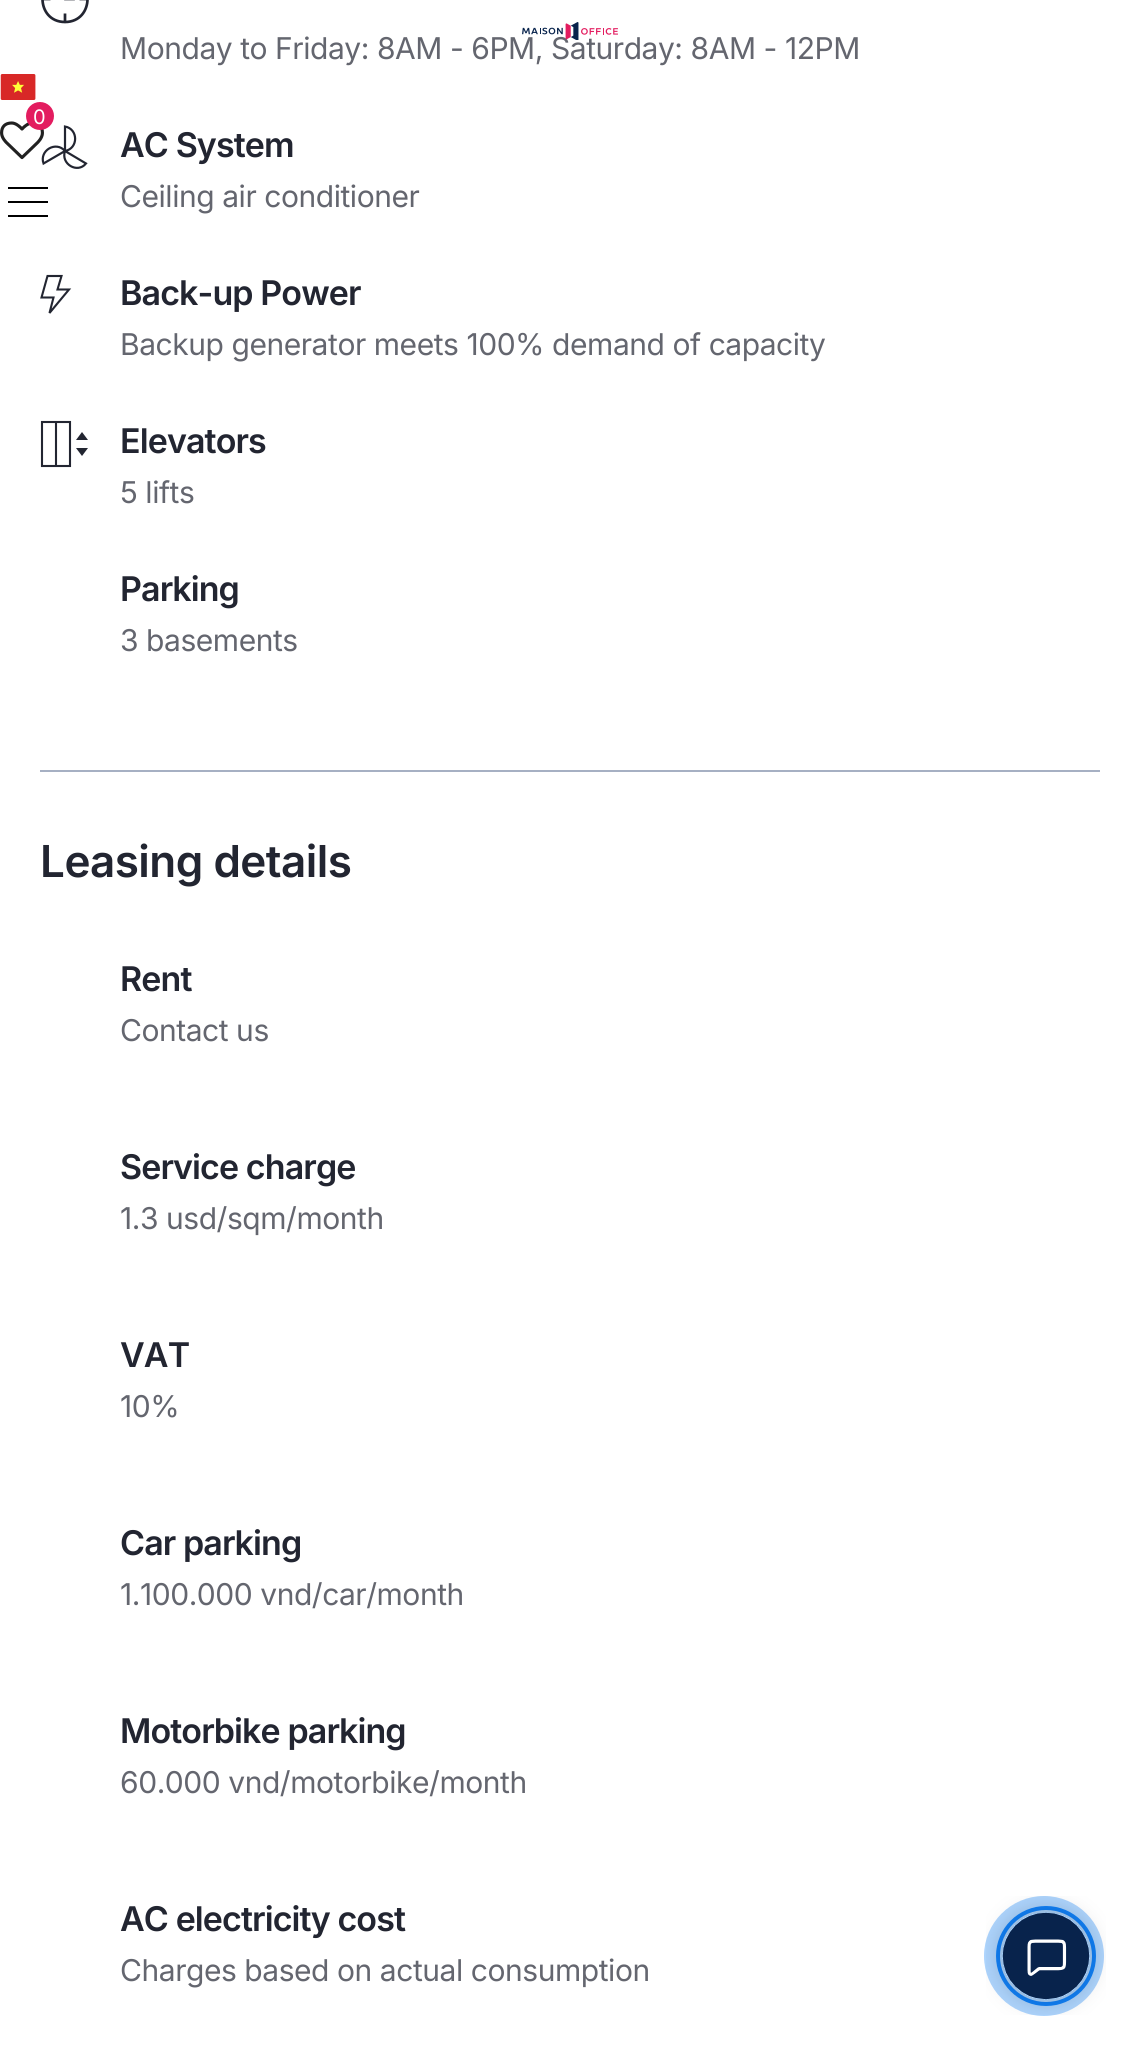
import math
import cairo

surface = cairo.ImageSurface(cairo.Format.RGB24, 1140, 2062)
ctx = cairo.Context(surface)
options = cairo.FontOptions()
options.set_hint_metrics(cairo.HintMetrics.OFF)
options.set_hint_style(cairo.HintStyle.NONE)
ctx.set_font_options(options)
ctx.set_miter_limit(4)


def ink(r, g, b):
    ctx.set_source_rgb(r / 255, g / 255, b / 255)


def write_spaced(x, y, s, letter, word):
    ctx.move_to(x, y)
    for ch in s:
        ctx.show_text(ch)
        ctx.rel_move_to(letter + word * (ch == ' '), 0)


def block(x, y, w, h, *color):
    ink(*color)
    ctx.rectangle(x, y, w, h)
    ctx.fill()


def paste(path, x, y, w, h):
    ctx.save()
    ctx.set_source_surface(cairo.ImageSurface.create_from_png(path), x, y)
    ctx.rectangle(x, y, w, h)
    ctx.fill()
    ctx.restore()


ink(255, 255, 255)
ctx.paint()
ctx.select_font_face("Inter")
ctx.set_font_size(30)
ink(100, 102, 111)
write_spaced(120, 59, "Monday to Friday: 8AM - 6PM, Saturday: 8AM - 12PM", -0.45, 0)
paste("pic1.png", 522, 22, 96, 18)
paste("pic2.png", 0, 74, 36, 26)
ctx.new_path()
ctx.move_to(43.5, 163.5)
ctx.line_to(65, 151)
ctx.curve_to(56, 140.5, 39, 150.5, 43.5, 163.5)
ctx.close_path()
ctx.move_to(86, 163.5)
ctx.line_to(65, 151)
ctx.curve_to(60.5, 164, 77.5, 174, 86, 163.5)
ctx.close_path()
ctx.move_to(65, 126.5)
ctx.line_to(65, 151)
ctx.curve_to(78.5, 148.5, 78.5, 129, 65, 126.5)
ctx.close_path()
ink(34, 37, 49)
ctx.set_line_width(2.2)
ctx.stroke()
paste("pic3.png", 0, 121, 44, 39)
ink(227, 28, 95)
ctx.arc(40, 116, 14, 0, 2 * math.pi)
ctx.fill()
ctx.set_font_size(20)
ink(255, 255, 255)
write_spaced(33, 124, "0", -0.9, 0)
block(8, 187, 40, 2, 0, 0, 0)
block(8, 201, 40, 2, 0, 0, 0)
block(8, 215, 40, 2, 0, 0, 0)
block(40, 770, 1060, 2, 166, 176, 195)
ctx.new_path()
ctx.move_to(88, -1)
ctx.line_to(79.5, -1)
ctx.move_to(65, 22)
ctx.line_to(65, 13.5)
ctx.move_to(42, -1)
ctx.line_to(50.5, -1)
ink(34, 37, 49)
ctx.set_line_width(2.7)
ctx.stroke()
ctx.new_path()
ctx.move_to(65, 22)
ctx.curve_to(95, 22, 95, -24, 65, -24)
ctx.curve_to(35, -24, 35, 22, 65, 22)
ctx.close_path()
ctx.move_to(56.5, -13.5)
ctx.line_to(65, -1)
ctx.line_to(73.5, -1)
ctx.set_line_cap(cairo.LineCap.SQUARE)
ctx.stroke()
ctx.select_font_face("Inter SemiBold")
ctx.set_font_size(34)
write_spaced(120, 157, "AC System", -0.9, 0)
ctx.select_font_face("Inter")
ctx.set_font_size(30)
ink(100, 102, 111)
write_spaced(120, 207, "Ceiling air conditioner", -0.45, 0)
ctx.new_path()
ctx.move_to(61.5, 276)
ctx.line_to(47.5, 276)
ctx.line_to(41.5, 297.5)
ctx.line_to(53.5, 297.5)
ctx.line_to(49.5, 313)
ctx.line_to(69, 289.5)
ctx.line_to(57.5, 289.5)
ctx.close_path()
ink(34, 37, 49)
ctx.set_line_width(2.1)
ctx.stroke()
ctx.select_font_face("Inter SemiBold")
ctx.set_font_size(34)
write_spaced(120, 305, "Back-up Power", -0.9, 0)
ctx.select_font_face("Inter")
ctx.set_font_size(30)
ink(100, 102, 111)
write_spaced(120, 355, "Backup generator meets 100% demand of capacity", -0.45, 0)
ctx.new_path()
ctx.move_to(56, 422)
ctx.line_to(42, 422)
ctx.line_to(42, 466)
ctx.line_to(56, 466)
ctx.close_path()
ctx.move_to(70, 422)
ctx.line_to(56, 422)
ctx.line_to(56, 466)
ctx.line_to(70, 466)
ctx.close_path()
ink(34, 37, 49)
ctx.stroke()
ctx.new_path()
ctx.move_to(76, 440)
ctx.line_to(88, 440)
ctx.line_to(82, 432)
ctx.close_path()
ctx.move_to(76, 448)
ctx.line_to(88, 448)
ctx.line_to(82, 456)
ctx.close_path()
ctx.fill()
ctx.select_font_face("Inter SemiBold")
ctx.set_font_size(34)
write_spaced(120, 453, "Elevators", -0.9, 0)
ctx.select_font_face("Inter")
ctx.set_font_size(30)
ink(100, 102, 111)
write_spaced(120, 503, "5 lifts", -0.45, 0)
ctx.select_font_face("Inter SemiBold")
ctx.set_font_size(34)
ink(34, 37, 49)
write_spaced(120, 601, "Parking", -0.9, 0)
ctx.select_font_face("Inter")
ctx.set_font_size(30)
ink(100, 102, 111)
write_spaced(120, 651, "3 basements", -0.45, 0)
ctx.select_font_face("Inter SemiBold")
ctx.set_font_size(44)
ink(34, 37, 49)
write_spaced(40, 877, "Leasing details", -0.5, 0)
ctx.set_font_size(34)
write_spaced(120, 991, "Rent", -0.9, 0)
ctx.select_font_face("Inter")
ctx.set_font_size(30)
ink(100, 102, 111)
write_spaced(120, 1041, "Contact us", -0.45, 0)
ctx.select_font_face("Inter SemiBold")
ctx.set_font_size(34)
ink(34, 37, 49)
write_spaced(120, 1179, "Service charge", -0.9, 0)
ctx.select_font_face("Inter")
ctx.set_font_size(30)
ink(100, 102, 111)
write_spaced(120, 1229, "1.3 usd/sqm/month", -0.45, 0)
ctx.select_font_face("Inter SemiBold")
ctx.set_font_size(34)
ink(34, 37, 49)
write_spaced(120, 1367, "VAT", -0.9, 0)
ctx.select_font_face("Inter")
ctx.set_font_size(30)
ink(100, 102, 111)
write_spaced(120, 1417, "10%", -0.45, 0)
ctx.select_font_face("Inter SemiBold")
ctx.set_font_size(34)
ink(34, 37, 49)
write_spaced(120, 1555, "Car parking", -0.9, 0)
ctx.select_font_face("Inter")
ctx.set_font_size(30)
ink(100, 102, 111)
write_spaced(120, 1605, "1.100.000 vnd/car/month", -0.45, 0)
ctx.select_font_face("Inter SemiBold")
ctx.set_font_size(34)
ink(34, 37, 49)
write_spaced(120, 1743, "Motorbike parking", -0.9, 0)
ctx.select_font_face("Inter")
ctx.set_font_size(30)
ink(100, 102, 111)
write_spaced(120, 1793, "60.000 vnd/motorbike/month", -0.45, 0)
ctx.select_font_face("Inter SemiBold")
ctx.set_font_size(34)
ink(34, 37, 49)
write_spaced(120, 1931, "AC electricity cost", -0.9, 0)
ctx.select_font_face("Inter")
ctx.set_font_size(30)
ink(100, 102, 111)
write_spaced(120, 1981, "Charges based on actual consumption", -0.45, 0)
ctx.new_path()
ctx.arc(1046, 1956, 48, 0, 2 * math.pi)
ink(17, 130, 252)
ctx.set_line_width(4)
ctx.set_line_cap(cairo.LineCap.BUTT)
ctx.stroke()
ctx.set_source_rgba(0.067, 0.51, 0.988, 0.34)
ctx.arc(1044, 1956, 60, 0, 2 * math.pi)
ctx.fill()
paste("pic4.png", 986, 1896, 120, 119)
surface.write_to_png("screenshot.png")
